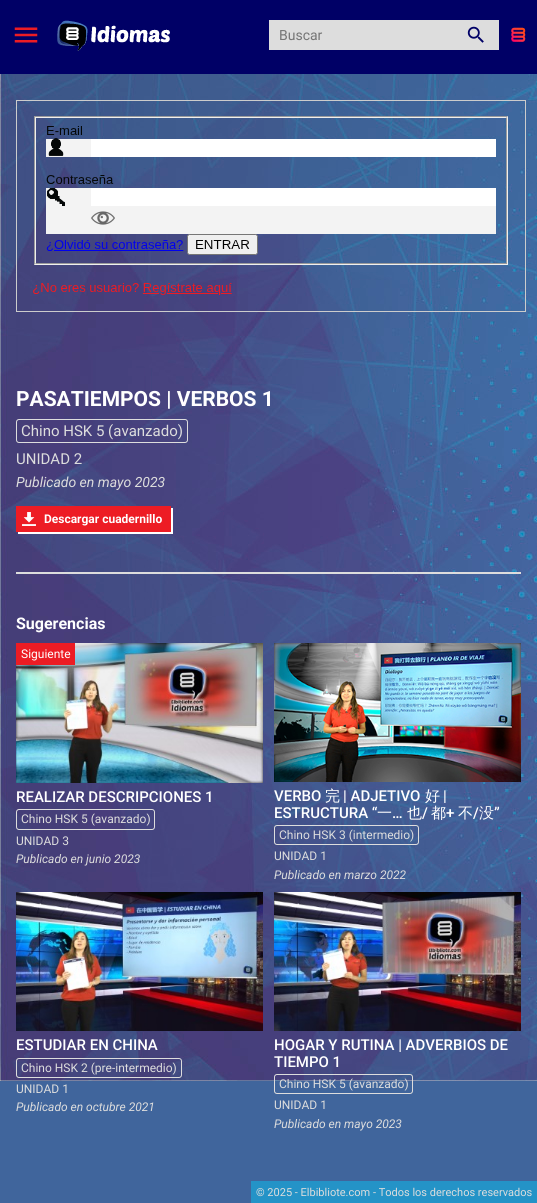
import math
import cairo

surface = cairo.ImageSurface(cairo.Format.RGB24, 537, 1203)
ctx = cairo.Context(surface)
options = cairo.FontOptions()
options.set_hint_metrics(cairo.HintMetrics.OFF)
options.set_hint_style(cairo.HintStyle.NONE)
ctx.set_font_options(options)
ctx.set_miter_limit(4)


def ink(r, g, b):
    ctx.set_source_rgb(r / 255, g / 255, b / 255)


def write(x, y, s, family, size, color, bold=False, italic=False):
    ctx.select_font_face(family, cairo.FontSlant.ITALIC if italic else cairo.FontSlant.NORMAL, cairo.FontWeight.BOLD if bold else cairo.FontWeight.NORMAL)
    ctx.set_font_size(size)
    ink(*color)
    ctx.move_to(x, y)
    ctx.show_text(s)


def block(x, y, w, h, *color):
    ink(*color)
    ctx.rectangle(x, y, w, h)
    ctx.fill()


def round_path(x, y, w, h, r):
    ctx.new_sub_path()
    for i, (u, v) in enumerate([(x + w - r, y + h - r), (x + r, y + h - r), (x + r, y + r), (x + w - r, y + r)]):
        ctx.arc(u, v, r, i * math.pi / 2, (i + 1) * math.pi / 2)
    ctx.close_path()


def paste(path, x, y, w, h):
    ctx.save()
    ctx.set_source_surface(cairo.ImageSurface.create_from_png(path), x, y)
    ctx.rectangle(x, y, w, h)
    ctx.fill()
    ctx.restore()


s1 = dict(family="Roboto", size=14, color=(117, 117, 117))
s2 = dict(family="Roboto", size=21, color=(255, 255, 255), bold=True)
s3 = dict(family="Roboto", size=15, color=(221, 221, 221))
s4 = dict(family="Roboto", size=14, color=(221, 221, 221), italic=True)
s5 = dict(family="Roboto", size=12, color=(255, 255, 255), bold=True)
s6 = dict(family="Roboto", size=16, color=(255, 255, 255), bold=True)
s7 = dict(family="Roboto", size=12, color=(255, 255, 255))
s8 = dict(family="Roboto Medium", size=15, color=(255, 255, 255))
s9 = dict(family="Roboto", size=12, color=(221, 221, 221))
s10 = dict(family="Roboto", size=12, color=(221, 221, 221), italic=True)
s11 = dict(family="WenQuanYi Zen Hei Medium", size=15, color=(255, 255, 255))
s12 = dict(family="Roboto", size=11, color=(221, 221, 221))

ink(64, 101, 156)
ctx.paint()
paste("pic1.png", 0, 74, 537, 1007)
block(0, 0, 537, 74, 0, 0, 102)
paste("pic2.png", 14, 27, 24, 16)
paste("pic3.png", 57, 20, 113, 31)
block(269, 20, 230, 30, 221, 221, 221)
write(279, 40, "Buscar", **s1)
paste("pic4.png", 467, 26, 17, 17)
paste("pic5.png", 511, 27, 15, 15)
paste("pic6.png", 16, 100, 510, 212)
write(16, 406, "PASATIEMPOS | VERBOS 1", **s2)
round_path(16.5, 419.5, 171, 23, 2.5)
ink(221, 221, 221)
ctx.set_line_width(1)
ctx.stroke()
write(21, 436, "Chino HSK 5 (avanzado)", **s3)
write(16, 464, "UNIDAD 2", **s3)
write(16, 487, "Publicado en mayo 2023", **s4)
ink(255, 255, 255)
ctx.new_path()
ctx.move_to(18, 532)
ctx.line_to(18, 534)
ctx.line_to(173, 534)
ctx.line_to(173, 508)
ctx.line_to(171, 508)
ctx.line_to(171, 532)
ctx.close_path()
ctx.fill()
block(16, 506, 155, 26, 237, 28, 36)
paste("pic7.png", 22, 512, 14, 14)
write(44, 523, "Descargar cuadernillo", **s5)
block(16, 572, 505, 2, 221, 221, 221)
write(16, 629, "Sugerencias", **s6)
paste("pic8.png", 16, 643, 247, 140)
block(16, 643, 59, 22, 236, 28, 36)
write(21, 658, "Siguiente", **s7)
write(16, 802, "REALIZAR DESCRIPCIONES 1", **s8)
round_path(16.5, 809.5, 138, 20, 2.5)
ink(221, 221, 221)
ctx.stroke()
write(21, 823, "Chino HSK 5 (avanzado)", **s9)
write(16, 845, "UNIDAD 3", **s9)
write(16, 863, "Publicado en junio 2023", **s10)
paste("pic9.png", 274, 643, 247, 139)
write(274, 801, "VERBO", **s8)
write(325, 801, "完", **s11)
write(343, 801, "| ADJETIVO", **s8)
write(425, 801, "好", **s11)
write(443, 801, "|", **s8)
write(274, 818, "ESTRUCTURA “", **s8)
write(377, 818, "一", **s11)
write(407, 818, "也", **s11)
write(422, 818, "/", **s8)
write(431, 818, "都", **s11)
write(446, 818, "+", **s8)
write(458, 818, "不", **s11)
write(473, 818, "/", **s8)
write(479, 818, "没", **s11)
write(494, 818, "”", **s8)
write(392, 818, "…", **s8)
round_path(274.5, 825.5, 144, 19, 2.5)
ink(221, 221, 221)
ctx.stroke()
write(279, 839, "Chino HSK 3 (intermedio)", **s9)
write(274, 860, "UNIDAD 1", **s9)
write(274, 879, "Publicado en marzo 2022", **s10)
paste("pic10.png", 16, 892, 247, 139)
write(16, 1050, "ESTUDIAR EN CHINA", **s8)
round_path(16.5, 1058.5, 165, 19, 2.5)
ink(221, 221, 221)
ctx.stroke()
write(21, 1072, "Chino HSK 2 (pre-intermedio)", **s9)
write(16, 1093, "UNIDAD 1", **s9)
write(16, 1111, "Publicado en octubre 2021", **s10)
paste("pic11.png", 274, 892, 247, 139)
write(274, 1050, "HOGAR Y RUTINA | ADVERBIOS DE", **s8)
write(274, 1067, "TIEMPO 1", **s8)
round_path(274.5, 1074.5, 138, 19, 2.5)
ink(221, 221, 221)
ctx.stroke()
write(279, 1088, "Chino HSK 5 (avanzado)", **s9)
write(274, 1109, "UNIDAD 1", **s9)
write(274, 1128, "Publicado en mayo 2023", **s10)
block(251, 1181, 286, 22, 36, 147, 199)
write(256, 1196, "© 2025 - Elbibliote.com - Todos los derechos reservados", **s12)
surface.write_to_png("screenshot.png")
